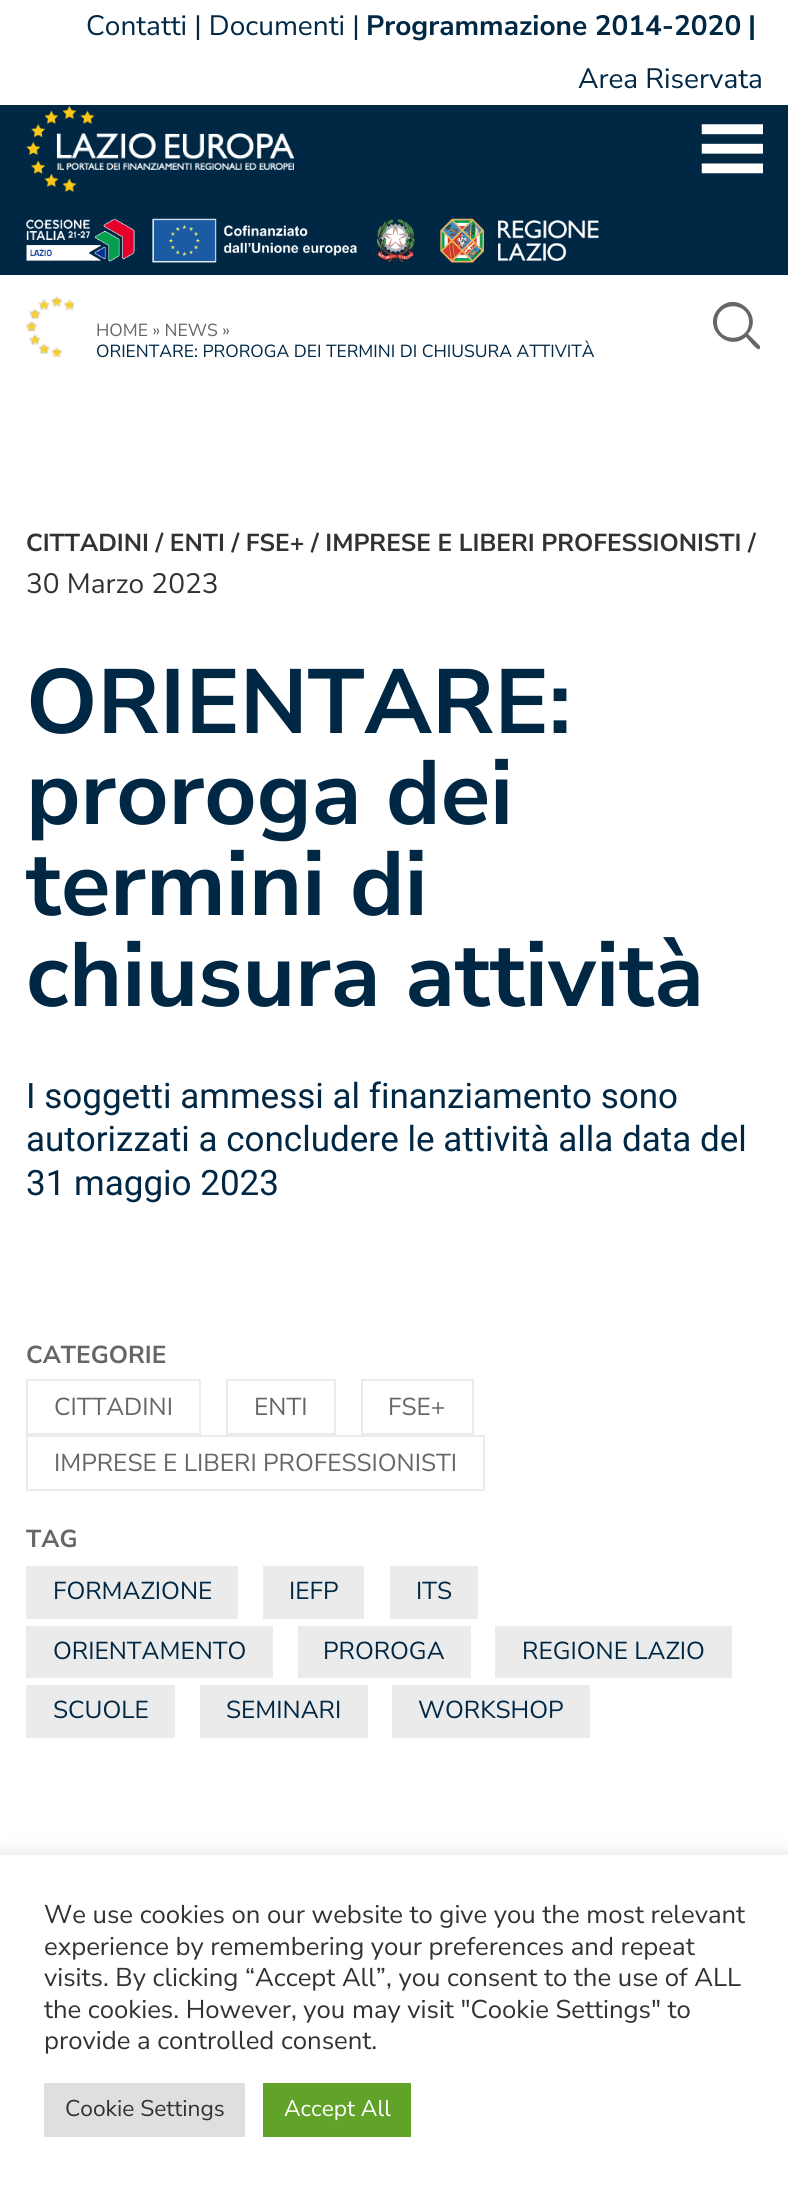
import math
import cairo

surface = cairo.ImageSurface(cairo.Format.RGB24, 788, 2189)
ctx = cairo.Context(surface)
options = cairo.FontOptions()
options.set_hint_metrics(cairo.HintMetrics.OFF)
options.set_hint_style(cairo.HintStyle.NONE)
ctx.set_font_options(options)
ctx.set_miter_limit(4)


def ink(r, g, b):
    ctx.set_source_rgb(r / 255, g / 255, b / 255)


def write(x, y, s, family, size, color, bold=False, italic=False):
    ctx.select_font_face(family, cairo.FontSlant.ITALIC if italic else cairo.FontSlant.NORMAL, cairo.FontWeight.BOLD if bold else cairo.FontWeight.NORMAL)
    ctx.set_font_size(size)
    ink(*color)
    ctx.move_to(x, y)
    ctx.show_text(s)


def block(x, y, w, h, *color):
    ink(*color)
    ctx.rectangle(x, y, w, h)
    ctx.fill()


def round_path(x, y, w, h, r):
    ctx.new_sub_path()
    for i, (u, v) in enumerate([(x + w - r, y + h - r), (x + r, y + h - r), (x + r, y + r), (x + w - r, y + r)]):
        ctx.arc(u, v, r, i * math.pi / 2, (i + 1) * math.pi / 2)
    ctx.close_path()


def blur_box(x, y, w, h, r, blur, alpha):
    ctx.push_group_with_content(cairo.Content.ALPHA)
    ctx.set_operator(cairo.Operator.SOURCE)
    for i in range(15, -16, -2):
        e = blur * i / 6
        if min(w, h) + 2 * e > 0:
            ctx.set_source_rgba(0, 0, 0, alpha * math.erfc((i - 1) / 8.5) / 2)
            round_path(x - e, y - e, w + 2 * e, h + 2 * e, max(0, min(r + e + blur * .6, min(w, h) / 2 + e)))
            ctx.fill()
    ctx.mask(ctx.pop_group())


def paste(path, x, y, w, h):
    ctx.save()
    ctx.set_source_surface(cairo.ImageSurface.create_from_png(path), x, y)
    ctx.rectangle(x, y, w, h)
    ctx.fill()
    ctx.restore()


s1 = dict(family="Nunito Sans", size=28, color=(0, 39, 68))
s2 = dict(family="Nunito Sans", size=28, color=(0, 39, 68), bold=True)
s3 = dict(family="Nunito Sans", size=17.5, color=(102, 102, 102))
s4 = dict(family="Nunito Sans", size=17.5, color=(0, 39, 68))
s5 = dict(family="Nunito Sans", size=24.5, color=(50, 50, 50), bold=True)
s6 = dict(family="Nunito Sans", size=28, color=(50, 50, 50))
s7 = dict(family="Nunito Sans", size=91, color=(0, 39, 68), bold=True)
s8 = dict(family="Roboto", size=35, color=(0, 39, 68))
s9 = dict(family="Nunito Sans", size=24.5, color=(102, 102, 102), bold=True)
s10 = dict(family="Nunito Sans", size=24.5, color=(102, 102, 102))
s11 = dict(family="Nunito Sans", size=24.5, color=(0, 39, 68))
s12 = dict(family="Nunito Sans", size=25.7, color=(50, 50, 50))
s13 = dict(family="Nunito Sans", size=22.75, color=(50, 50, 50))
s14 = dict(family="Nunito Sans", size=22.75, color=(255, 255, 255))

ink(255, 255, 255)
ctx.paint()
write(86, 35, "Contatti | Documenti |", **s1)
write(366, 35, "Programmazione 2014-2020", **s2)
write(748, 35, "|", **s2)
write(578, 88, "Area Riservata", **s1)
block(0, 105, 788, 170, 0, 39, 68)
paste("pic1.png", 26, 105, 269, 87)
paste("pic2.png", 701, 124, 62, 50)
paste("pic3.png", 26, 218, 573, 45)
paste("pic4.png", 26, 296, 49, 61)
write(96, 336, "HOME » NEWS »", **s3)
write(96, 357, "ORIENTARE: PROROGA DEI TERMINI DI CHIUSURA ATTIVITÀ", **s4)
ink(102, 102, 102)
ctx.new_path()
ctx.move_to(760, 346)
ctx.line_to(748, 334)
ctx.curve_to(764, 316, 737, 290, 719, 308)
ctx.curve_to(701, 326, 727, 353, 746, 337)
ctx.line_to(753, 345)
ctx.curve_to(753, 345, 759, 352, 760, 348)
ctx.close_path()
ctx.move_to(717, 322)
ctx.curve_to(717, 301, 749, 301, 749, 322)
ctx.curve_to(749, 343, 717, 343, 717, 322)
ctx.close_path()
ctx.fill()
write(26, 551, "CITTADINI / ENTI / FSE+ / IMPRESE E LIBERI PROFESSIONISTI /", **s5)
write(26, 593, "30 Marzo 2023", **s6)
write(26, 733, "ORIENTARE:", **s7)
write(26, 824, "proroga dei", **s7)
write(26, 915, "termini di", **s7)
write(26, 1006, "chiusura attività", **s7)
write(26, 1108, "I soggetti ammessi al finanziamento sono", **s8)
write(26, 1151, "autorizzati a concludere le attività alla data del", **s8)
write(26, 1195, "31 maggio 2023", **s8)
write(26, 1363, "CATEGORIE", **s9)
ctx.rectangle(27, 1380, 173, 54)
ink(235, 235, 235)
ctx.stroke()
write(54, 1415, "CITTADINI", **s10)
ctx.rectangle(227, 1380, 108, 54)
ink(235, 235, 235)
ctx.stroke()
write(254, 1415, "ENTI", **s10)
ctx.rectangle(362, 1380, 111, 54)
ink(235, 235, 235)
ctx.stroke()
write(388, 1415, "FSE+", **s10)
ctx.rectangle(27, 1436, 457, 54)
ink(235, 235, 235)
ctx.stroke()
write(54, 1471, "IMPRESE E LIBERI PROFESSIONISTI", **s10)
write(26, 1547, "TAG", **s9)
block(26, 1566, 212, 53, 235, 235, 235)
write(53, 1599, "FORMAZIONE", **s11)
block(263, 1566, 101, 53, 235, 235, 235)
write(289, 1599, "IEFP", **s11)
block(390, 1566, 88, 53, 235, 235, 235)
write(416, 1599, "ITS", **s11)
block(26, 1626, 247, 52, 235, 235, 235)
write(53, 1659, "ORIENTAMENTO", **s11)
block(298, 1626, 173, 52, 235, 235, 235)
write(323, 1659, "PROROGA", **s11)
block(495, 1626, 237, 52, 235, 235, 235)
write(522, 1659, "REGIONE LAZIO", **s11)
block(26, 1685, 149, 53, 235, 235, 235)
write(53, 1718, "SCUOLE", **s11)
block(200, 1685, 168, 53, 235, 235, 235)
write(226, 1718, "SEMINARI", **s11)
block(392, 1685, 198, 53, 235, 235, 235)
write(418, 1718, "WORKSHOP", **s11)
ink(172, 171, 171)
blur_box(0, 1853, 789, 335, 0, 9, 0.3)
block(0, 1855, 788, 334, 255, 255, 255)
write(44, 1923, "We use cookies on our website to give you the most relevant", **s12)
write(44, 1955, "experience by remembering your preferences and repeat", **s12)
write(44, 1986, "visits. By clicking “Accept All”, you consent to the use of ALL", **s12)
write(44, 2018, "the cookies. However, you may visit \"Cookie Settings\" to", **s12)
write(44, 2049, "provide a controlled consent.", **s12)
block(44, 2083, 201, 54, 222, 223, 224)
write(65, 2116, "Cookie Settings", **s13)
block(263, 2083, 148, 54, 97, 162, 41)
write(284, 2116, "Accept All", **s14)
surface.write_to_png("screenshot.png")
